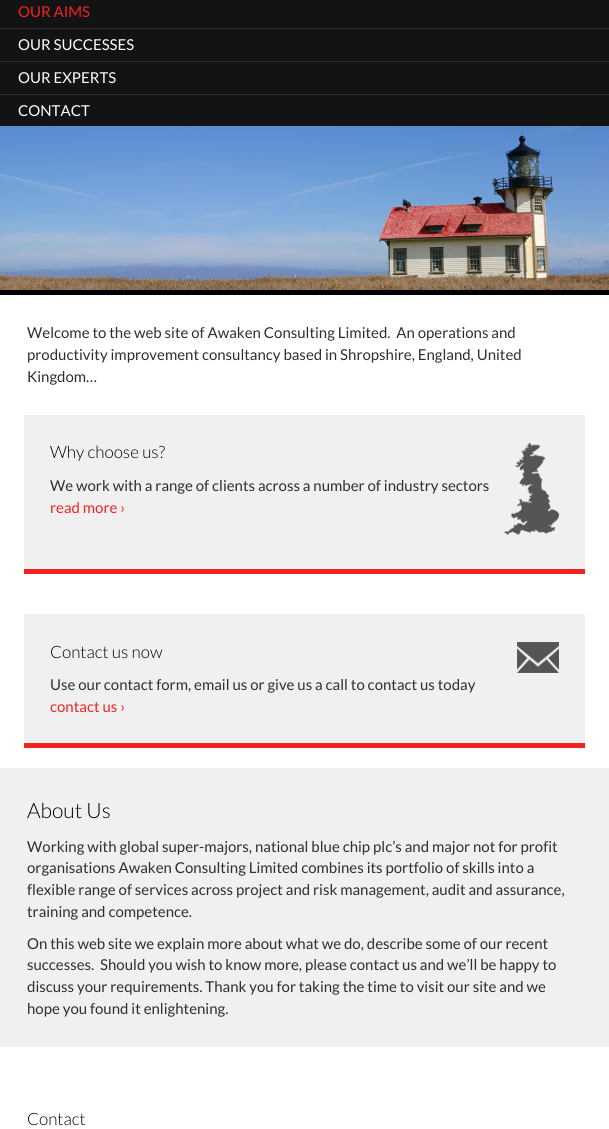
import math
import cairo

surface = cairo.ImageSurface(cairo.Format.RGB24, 609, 1129)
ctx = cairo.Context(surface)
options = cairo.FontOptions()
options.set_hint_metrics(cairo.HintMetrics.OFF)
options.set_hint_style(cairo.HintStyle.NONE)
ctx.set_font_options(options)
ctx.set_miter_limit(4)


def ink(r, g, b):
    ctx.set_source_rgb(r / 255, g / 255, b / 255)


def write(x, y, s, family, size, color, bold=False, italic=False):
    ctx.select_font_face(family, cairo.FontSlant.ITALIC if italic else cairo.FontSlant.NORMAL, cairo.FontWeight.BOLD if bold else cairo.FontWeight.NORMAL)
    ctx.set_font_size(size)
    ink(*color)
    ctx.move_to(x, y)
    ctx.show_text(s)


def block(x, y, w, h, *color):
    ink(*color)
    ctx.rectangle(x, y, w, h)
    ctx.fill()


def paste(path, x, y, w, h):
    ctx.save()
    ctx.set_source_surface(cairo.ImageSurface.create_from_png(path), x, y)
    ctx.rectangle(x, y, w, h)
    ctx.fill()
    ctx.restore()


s1 = dict(family="Lato", size=15, color=(239, 35, 34))
s2 = dict(family="Lato", size=15, color=(255, 255, 255))
s3 = dict(family="Lato", size=15, color=(46, 46, 46))
s4 = dict(family="Lato Light", size=17, color=(0, 0, 0))
s5 = dict(family="Lato Light", size=21, color=(0, 0, 0))

ink(255, 255, 255)
ctx.paint()
block(0, 0, 609, 28, 19, 19, 19)
write(18, 17, "OUR AIMS", **s1)
block(0, 28, 609, 1, 46, 46, 46)
block(0, 29, 609, 32, 19, 19, 19)
write(18, 50, "OUR SUCCESSES", **s2)
block(0, 61, 609, 1, 46, 46, 46)
block(0, 62, 609, 32, 19, 19, 19)
write(18, 83, "OUR EXPERTS", **s2)
block(0, 94, 609, 1, 46, 46, 46)
block(0, 95, 609, 31, 19, 19, 19)
write(18, 116, "CONTACT", **s2)
block(0, 290, 609, 5, 0, 0, 0)
paste("pic1.png", 0, 126, 609, 164)
write(27, 338, "Welcome to the web site of Awaken Consulting Limited.  An operations and", **s3)
write(27, 360, "productivity improvement consultancy based in Shropshire, England, United", **s3)
write(27, 382, "Kingdom…", **s3)
block(24, 415, 561, 154, 240, 240, 240)
block(24, 569, 561, 5, 239, 35, 34)
write(50, 458, "Why choose us?", **s4)
paste("pic2.png", 504, 443, 55, 92)
write(50, 491, "We work with a range of clients across a number of industry sectors", **s3)
write(50, 513, "read more ›", **s1)
block(24, 614, 561, 129, 240, 240, 240)
block(24, 743, 561, 5, 239, 35, 34)
write(50, 658, "Contact us now", **s4)
paste("pic3.png", 517, 642, 42, 31)
write(50, 690, "Use our contact form, email us or give us a call to contact us today", **s3)
write(50, 712, "contact us ›", **s1)
block(0, 768, 609, 279, 240, 240, 240)
write(27, 818, "About Us", **s5)
write(27, 852, "Working with global super-majors, national blue chip plc’s and major not for profit", **s3)
write(27, 873, "organisations Awaken Consulting Limited combines its portfolio of skills into a", **s3)
write(27, 895, "flexible range of services across project and risk management, audit and assurance,", **s3)
write(27, 917, "training and competence.", **s3)
write(27, 949, "On this web site we explain more about what we do, describe some of our recent", **s3)
write(27, 970, "successes.  Should you wish to know more, please contact us and we’ll be happy to", **s3)
write(27, 992, "discuss your requirements. Thank you for taking the time to visit our site and we", **s3)
write(27, 1014, "hope you found it enlightening.", **s3)
write(27, 1125, "Contact", **s4)
surface.write_to_png("screenshot.png")
